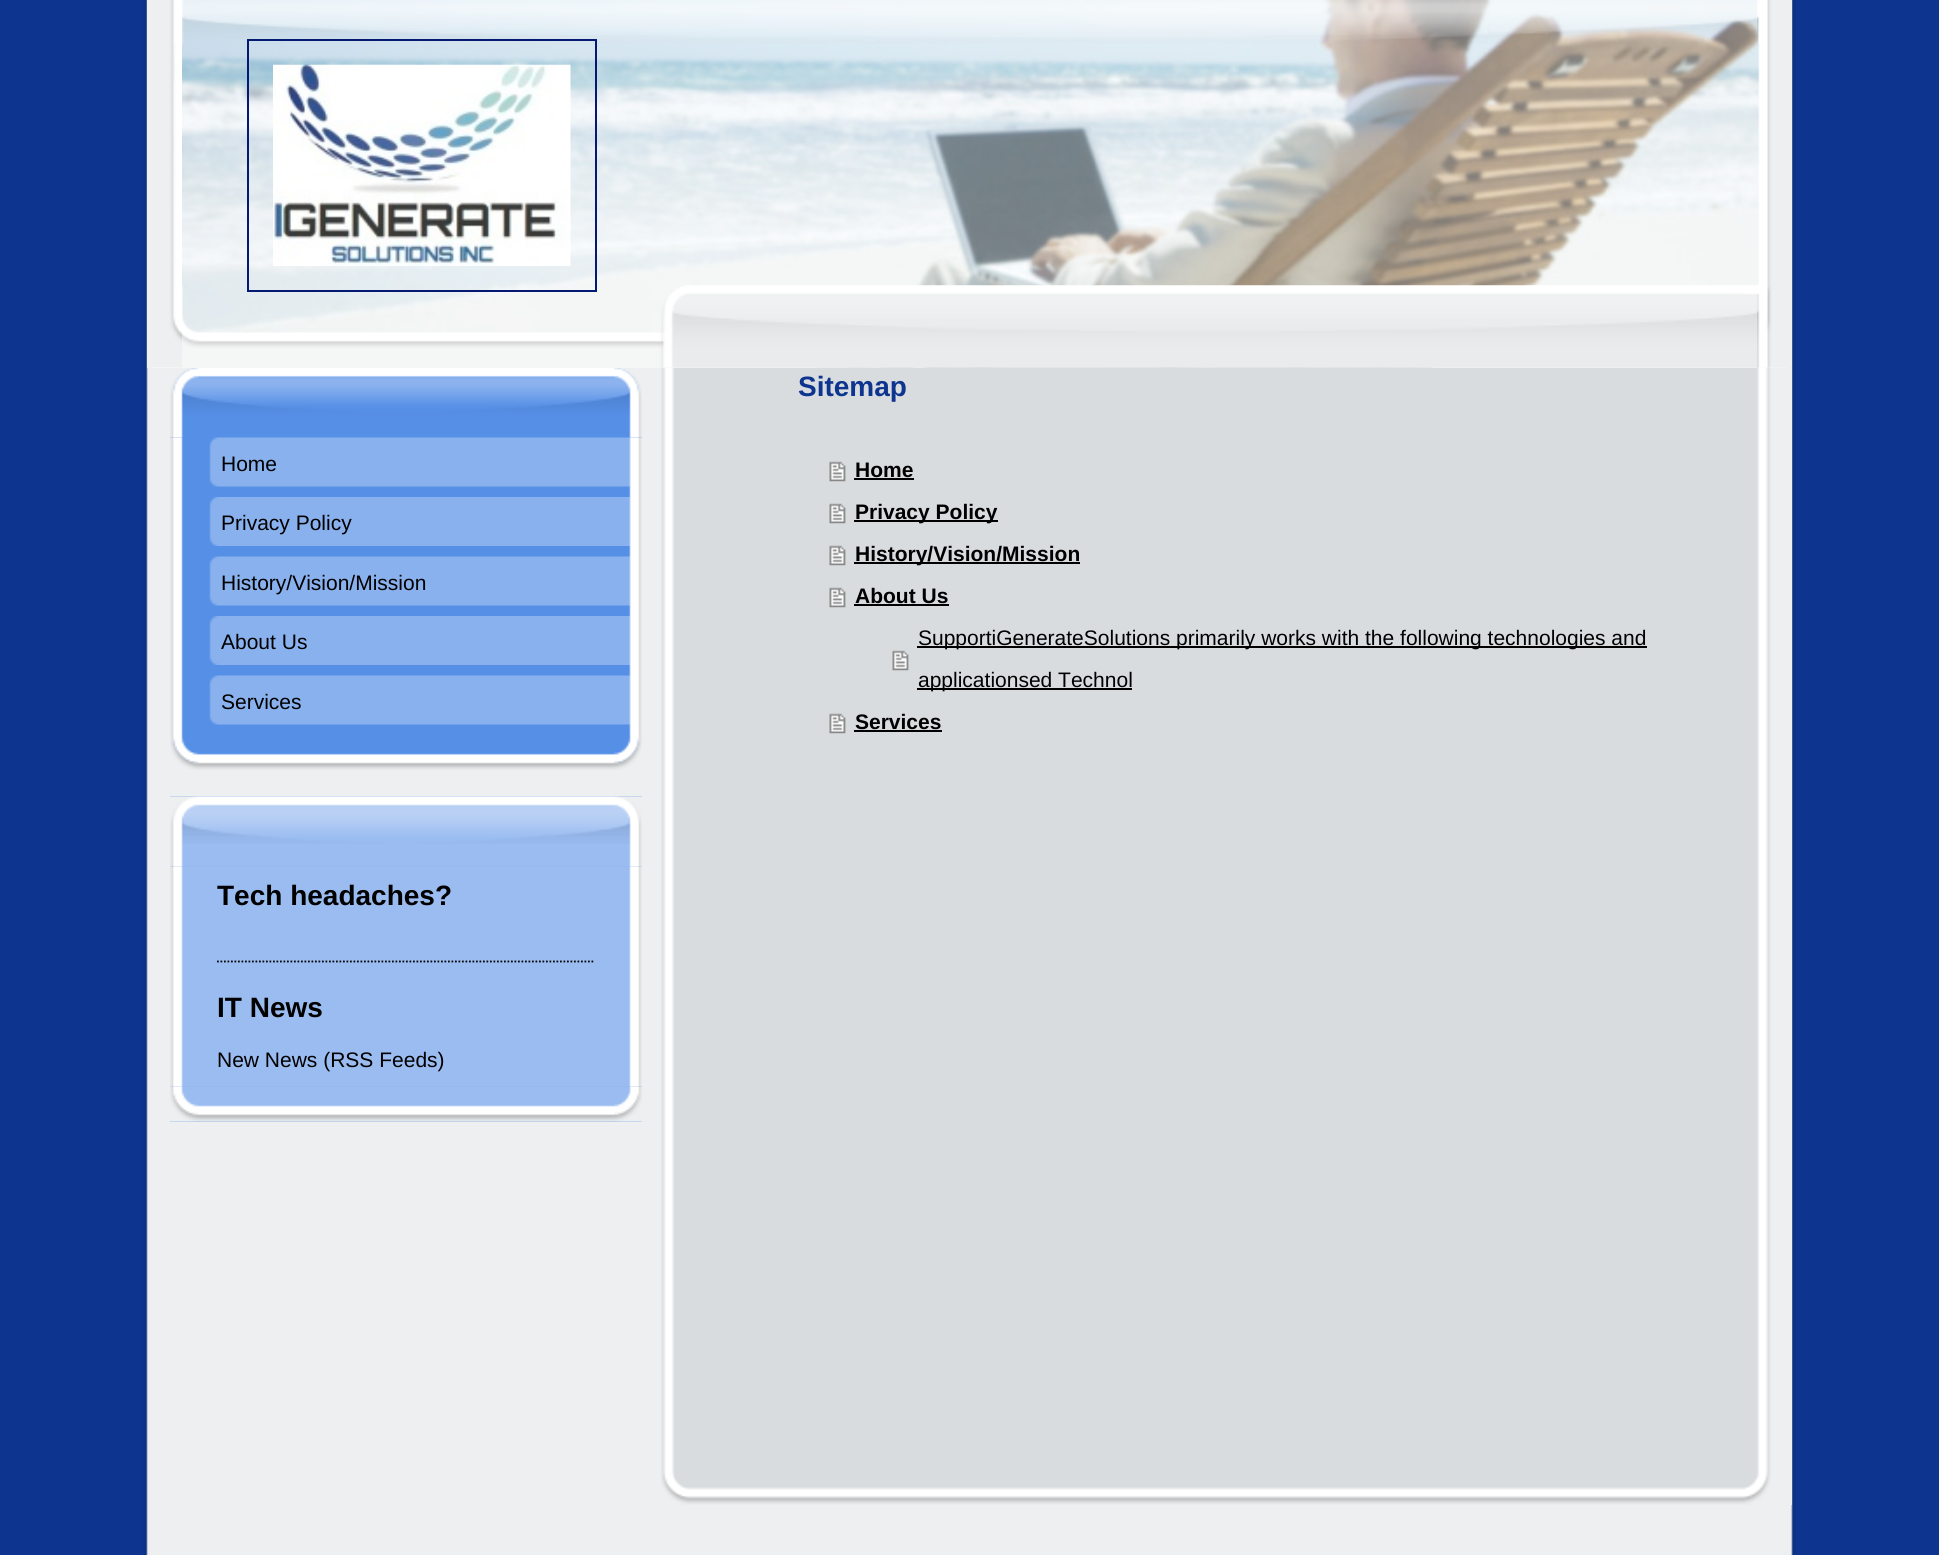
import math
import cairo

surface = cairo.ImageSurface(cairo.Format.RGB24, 1939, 1555)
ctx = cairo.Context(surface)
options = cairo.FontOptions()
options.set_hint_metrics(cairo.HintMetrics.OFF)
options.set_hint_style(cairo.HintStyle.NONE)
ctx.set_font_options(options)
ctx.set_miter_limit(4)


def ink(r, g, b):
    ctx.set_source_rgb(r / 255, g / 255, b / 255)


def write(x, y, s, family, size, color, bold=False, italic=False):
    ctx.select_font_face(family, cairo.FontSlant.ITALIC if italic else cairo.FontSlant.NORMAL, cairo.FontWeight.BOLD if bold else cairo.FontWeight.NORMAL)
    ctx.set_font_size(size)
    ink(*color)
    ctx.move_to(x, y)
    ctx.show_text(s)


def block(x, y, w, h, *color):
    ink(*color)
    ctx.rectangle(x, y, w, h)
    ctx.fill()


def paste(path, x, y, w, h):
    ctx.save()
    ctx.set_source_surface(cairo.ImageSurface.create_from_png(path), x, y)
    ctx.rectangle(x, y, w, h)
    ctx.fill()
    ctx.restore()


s1 = dict(family="Liberation Sans", size=21, color=(0, 0, 0))
s2 = dict(family="Liberation Sans", size=28, color=(0, 0, 0), bold=True)
s3 = dict(family="Liberation Sans", size=28, color=(13, 53, 143), bold=True)
s4 = dict(family="Liberation Sans", size=21, color=(0, 0, 0), bold=True)

ink(13, 53, 143)
ctx.paint()
paste("pic1.png", 142, 0, 1655, 1555)
block(147, 367, 1645, 1, 238, 238, 238)
paste("pic2.png", 147, 0, 1645, 368)
paste("pic5.png", 172, 0, 1588, 44)
paste("pic7.png", 147, 285, 1645, 83)
ctx.set_source_rgba(1, 1, 1, 0.42)
ctx.rectangle(151, 0, 1636, 368)
ctx.fill()
ctx.rectangle(248, 40, 348, 251)
ink(5, 25, 114)
ctx.stroke()
paste("pic3.png", 273, 64, 298, 202)
paste("pic4.png", 147, 0, 35, 367)
paste("pic6.png", 1757, 0, 35, 368)
block(170, 368, 472, 396, 86, 143, 230)
paste("pic8.png", 170, 368, 472, 70)
paste("pic9.png", 170, 735, 472, 35)
paste("pic10.png", 170, 437, 472, 298)
paste("pic11.png", 209, 437, 421, 50)
write(221, 471, "Home", **s1)
paste("pic12.png", 209, 497, 421, 49)
write(221, 530, "Privacy Policy", **s1)
paste("pic13.png", 209, 556, 421, 50)
write(221, 590, "History/Vision/Mission", **s1)
paste("pic12.png", 209, 616, 421, 49)
write(221, 649, "About Us", **s1)
paste("pic13.png", 209, 675, 421, 50)
write(221, 709, "Services", **s1)
block(170, 796, 472, 326, 86, 143, 230)
paste("pic14.png", 170, 796, 472, 71)
paste("pic15.png", 170, 1086, 472, 36)
paste("pic16.png", 170, 866, 472, 221)
write(217, 905, "Tech headaches?", **s2)
ctx.new_path()
ctx.move_to(217, 961.5)
ctx.line_to(595, 961.5)
ctx.set_line_width(1.8)
ctx.set_dash([1.75, 1.75])
ctx.stroke()
write(217, 1017, "IT News", **s2)
write(217, 1067, "New News (RSS Feeds)", **s1)
paste("pic17.png", 661, 368, 1131, 1137)
paste("pic18.png", 661, 1473, 1110, 32)
write(798, 396, "Sitemap", **s3)
paste("pic19.png", 829, 461, 17, 21)
write(855, 477, "Home", **s4)
block(854, 478, 60, 2, 0, 0, 0)
paste("pic19.png", 829, 503, 17, 21)
block(854, 520, 144, 2, 0, 0, 0)
write(855, 519, "Privacy Policy", **s4)
paste("pic19.png", 829, 545, 17, 21)
block(854, 562, 226, 2, 0, 0, 0)
write(855, 561, "History/Vision/Mission", **s4)
paste("pic19.png", 829, 587, 17, 21)
write(855, 603, "About Us", **s4)
block(854, 604, 95, 2, 0, 0, 0)
paste("pic20.png", 892, 650, 17, 21)
block(917, 646, 730, 2, 0, 0, 0)
write(918, 645, "SupportiGenerateSolutions primarily works with the following technologies and", **s1)
block(917, 688, 215, 2, 0, 0, 0)
write(918, 687, "applicationsed Technol", **s1)
paste("pic19.png", 829, 713, 17, 21)
write(855, 729, "Services", **s4)
block(854, 730, 88, 2, 0, 0, 0)
surface.write_to_png("screenshot.png")
